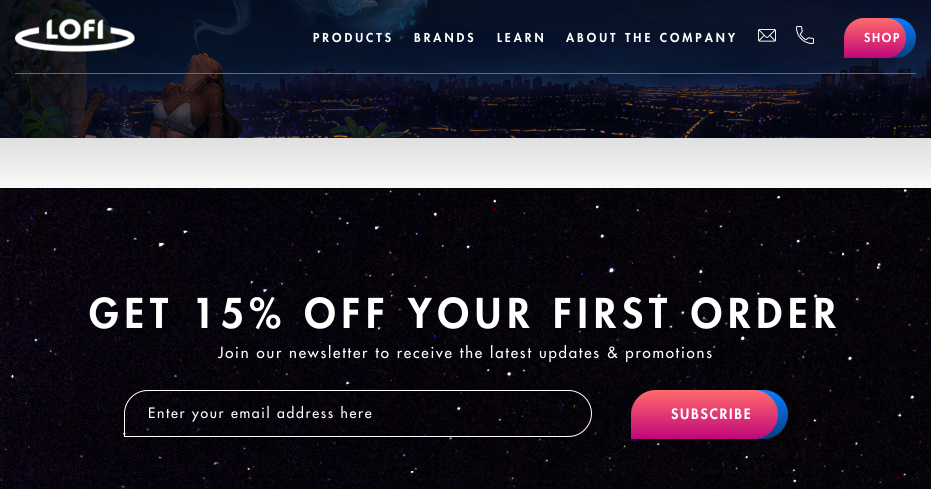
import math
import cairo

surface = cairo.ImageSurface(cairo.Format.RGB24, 931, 489)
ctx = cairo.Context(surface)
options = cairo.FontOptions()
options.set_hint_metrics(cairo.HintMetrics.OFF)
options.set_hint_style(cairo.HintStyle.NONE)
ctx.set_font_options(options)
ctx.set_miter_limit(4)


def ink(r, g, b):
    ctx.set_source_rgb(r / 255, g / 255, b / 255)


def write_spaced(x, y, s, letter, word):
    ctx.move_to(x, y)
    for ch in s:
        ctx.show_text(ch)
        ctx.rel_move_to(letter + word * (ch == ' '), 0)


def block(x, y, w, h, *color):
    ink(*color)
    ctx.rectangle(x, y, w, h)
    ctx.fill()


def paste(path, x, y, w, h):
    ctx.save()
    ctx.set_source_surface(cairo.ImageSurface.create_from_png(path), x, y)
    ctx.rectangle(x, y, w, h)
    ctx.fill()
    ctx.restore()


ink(255, 255, 255)
ctx.paint()
paste("pic1.png", 0, 0, 931, 138)
gradient = cairo.LinearGradient(466, 0, 466, 200)
gradient.add_color_stop_rgba(0, 0, 0, 0, 0.4)
gradient.add_color_stop_rgba(1, 0, 0, 0, 0)
ctx.set_source(gradient)
ctx.rectangle(0, 0, 931, 188)
ctx.fill()
block(15, 73, 901, 1, 10, 124, 255)
paste("pic2.png", 15, 18, 120, 35)
ctx.select_font_face("Futura Black")
ctx.set_font_size(12)
ink(255, 255, 255)
write_spaced(313, 42, "PRODUCTS", 3, 0)
write_spaced(414, 42, "BRANDS", 3, 0)
write_spaced(497, 42, "LEARN", 3, 0)
write_spaced(566, 42, "ABOUT THE COMPANY", 3, 0)
paste("pic3.png", 758, 29, 18, 13)
paste("pic4.png", 796, 26, 18, 18)
gradient = cairo.LinearGradient(885, 58, 885, 18)
gradient.add_color_stop_rgba(0, 0.02, 0.243, 0.502, 1)
gradient.add_color_stop_rgba(1, 0.039, 0.486, 1, 1)
ctx.set_source(gradient)
ctx.new_path()
ctx.move_to(874, 18)
ctx.line_to(896, 18)
ctx.curve_to(907, 18, 916, 27, 916, 38)
ctx.curve_to(916, 49, 907, 58, 896, 58)
ctx.line_to(854, 58)
ctx.line_to(854, 38)
ctx.curve_to(854, 27, 863, 18, 874, 18)
ctx.close_path()
ctx.fill()
gradient = cairo.LinearGradient(875, 18, 875, 58)
gradient.add_color_stop_rgba(0, 1, 0.42, 0.42, 1)
gradient.add_color_stop_rgba(1, 0.757, 0.024, 0.478, 1)
ctx.set_source(gradient)
ctx.new_path()
ctx.move_to(864, 18)
ctx.line_to(886, 18)
ctx.curve_to(897, 18, 906, 27, 906, 38)
ctx.curve_to(906, 49, 897, 58, 886, 58)
ctx.line_to(844, 58)
ctx.line_to(844, 38)
ctx.curve_to(844, 27, 853, 18, 864, 18)
ctx.close_path()
ctx.fill()
ink(255, 255, 255)
write_spaced(864, 42, "SHOP", 1.7, 0)
paste("pic5.png", 0, 188, 931, 301)
ctx.set_font_size(40)
write_spaced(89, 328, "GET 15% OFF YOUR FIRST ORDER", 6, 0)
ctx.select_font_face("Futura Medium")
ctx.set_font_size(15)
write_spaced(218, 358, "Join our newsletter to receive the latest updates & promotions", 1.8, 0)
ctx.new_path()
ctx.move_to(147.5, 390.5)
ctx.line_to(568.5, 390.5)
ctx.curve_to(581, 390.5, 591.5, 401, 591.5, 413.5)
ctx.curve_to(591.5, 426, 581, 436.5, 568.5, 436.5)
ctx.line_to(124.5, 436.5)
ctx.line_to(124.5, 413.5)
ctx.curve_to(124.5, 401, 135, 390.5, 147.5, 390.5)
ctx.close_path()
ctx.set_line_width(1)
ctx.stroke()
ctx.set_font_size(14)
write_spaced(148, 418, "Enter your email address here", 1.7, 0)
gradient = cairo.LinearGradient(715, 439, 715, 390)
gradient.add_color_stop_rgba(0, 0.02, 0.243, 0.502, 1)
gradient.add_color_stop_rgba(1, 0.039, 0.486, 1, 1)
ctx.set_source(gradient)
ctx.new_path()
ctx.move_to(665.5, 390)
ctx.line_to(763.5, 390)
ctx.curve_to(777, 390, 788, 401, 788, 414.5)
ctx.curve_to(788, 428, 777, 439, 763.5, 439)
ctx.line_to(641, 439)
ctx.line_to(641, 414.5)
ctx.curve_to(641, 401, 652, 390, 665.5, 390)
ctx.close_path()
ctx.fill()
gradient = cairo.LinearGradient(705, 390, 705, 439)
gradient.add_color_stop_rgba(0, 1, 0.42, 0.42, 1)
gradient.add_color_stop_rgba(1, 0.757, 0.024, 0.478, 1)
ctx.set_source(gradient)
ctx.new_path()
ctx.move_to(655.5, 390)
ctx.line_to(753.5, 390)
ctx.curve_to(767, 390, 778, 401, 778, 414.5)
ctx.curve_to(778, 428, 767, 439, 753.5, 439)
ctx.line_to(631, 439)
ctx.line_to(631, 414.5)
ctx.curve_to(631, 401, 642, 390, 655.5, 390)
ctx.close_path()
ctx.fill()
ctx.select_font_face("Futura Black")
ink(255, 255, 255)
write_spaced(671, 419, "SUBSCRIBE", 1.7, 0)
surface.write_to_png("screenshot.png")
